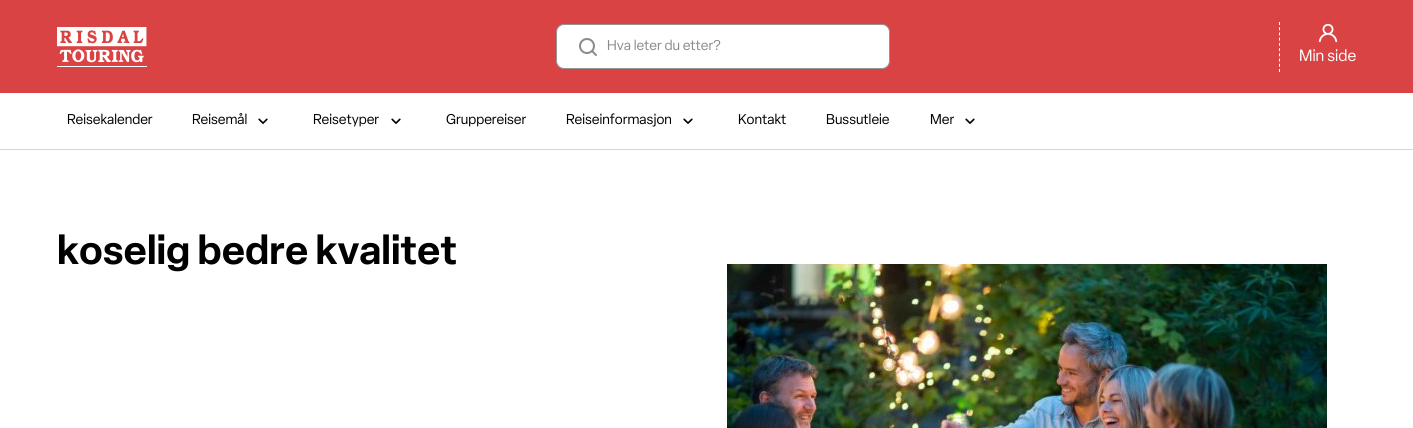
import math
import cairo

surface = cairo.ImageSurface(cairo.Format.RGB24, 1413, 428)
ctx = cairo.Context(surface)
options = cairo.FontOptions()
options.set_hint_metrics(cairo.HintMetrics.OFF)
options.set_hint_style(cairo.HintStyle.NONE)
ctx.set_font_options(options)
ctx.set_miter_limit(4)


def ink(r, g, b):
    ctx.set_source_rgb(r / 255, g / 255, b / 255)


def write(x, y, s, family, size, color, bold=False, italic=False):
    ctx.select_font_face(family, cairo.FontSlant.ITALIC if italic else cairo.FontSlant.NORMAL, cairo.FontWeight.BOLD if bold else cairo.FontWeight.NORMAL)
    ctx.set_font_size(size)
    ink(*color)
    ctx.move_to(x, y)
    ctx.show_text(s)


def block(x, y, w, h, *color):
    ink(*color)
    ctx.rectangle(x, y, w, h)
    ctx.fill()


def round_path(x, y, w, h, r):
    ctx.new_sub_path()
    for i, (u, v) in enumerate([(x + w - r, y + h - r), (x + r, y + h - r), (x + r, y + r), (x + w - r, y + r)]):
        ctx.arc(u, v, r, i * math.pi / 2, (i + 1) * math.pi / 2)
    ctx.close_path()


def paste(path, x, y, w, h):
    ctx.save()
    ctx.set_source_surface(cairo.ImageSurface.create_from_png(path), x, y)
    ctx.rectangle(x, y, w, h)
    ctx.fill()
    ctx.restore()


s1 = dict(family="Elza", size=14, color=(139, 139, 139))
s2 = dict(family="Elza", size=16, color=(255, 255, 255))
s3 = dict(family="Elza", size=14, color=(0, 0, 0))
s4 = dict(family="Elza SemiBold", size=40, color=(0, 0, 0))

ink(255, 255, 255)
ctx.paint()
block(0, 0, 1413, 93, 217, 67, 67)
paste("pic1.png", 57, 27, 90, 40)
ink(255, 255, 255)
round_path(556.5, 24.5, 333, 44, 7.5)
ctx.fill_preserve()
ink(148, 148, 148)
ctx.set_line_width(1)
ctx.stroke()
paste("pic2.png", 579, 38, 18, 18)
write(607, 50, "Hva leter du etter?", **s1)
ctx.new_path()
ctx.move_to(1279.5, 22)
ctx.line_to(1279.5, 72)
ink(255, 255, 255)
ctx.set_dash([3, 2.22])
ctx.stroke()
paste("pic3.png", 1318, 23, 20, 20)
write(1299, 61, "Min side", **s2)
block(0, 149, 1413, 1, 213, 213, 213)
write(67, 124, "Reisekalender", **s3)
write(192, 124, "Reisemål", **s3)
paste("pic4.png", 258, 118, 10, 6)
write(313, 124, "Reisetyper", **s3)
paste("pic4.png", 391, 118, 10, 6)
write(446, 124, "Gruppereiser", **s3)
write(566, 124, "Reiseinformasjon", **s3)
paste("pic4.png", 683, 118, 10, 6)
write(738, 124, "Kontakt", **s3)
write(826, 124, "Bussutleie", **s3)
write(930, 124, "Mer", **s3)
paste("pic4.png", 965, 118, 10, 6)
write(57, 264, "koselig bedre kvalitet", **s4)
paste("pic5.png", 727, 264, 600, 164)
surface.write_to_png("screenshot.png")
